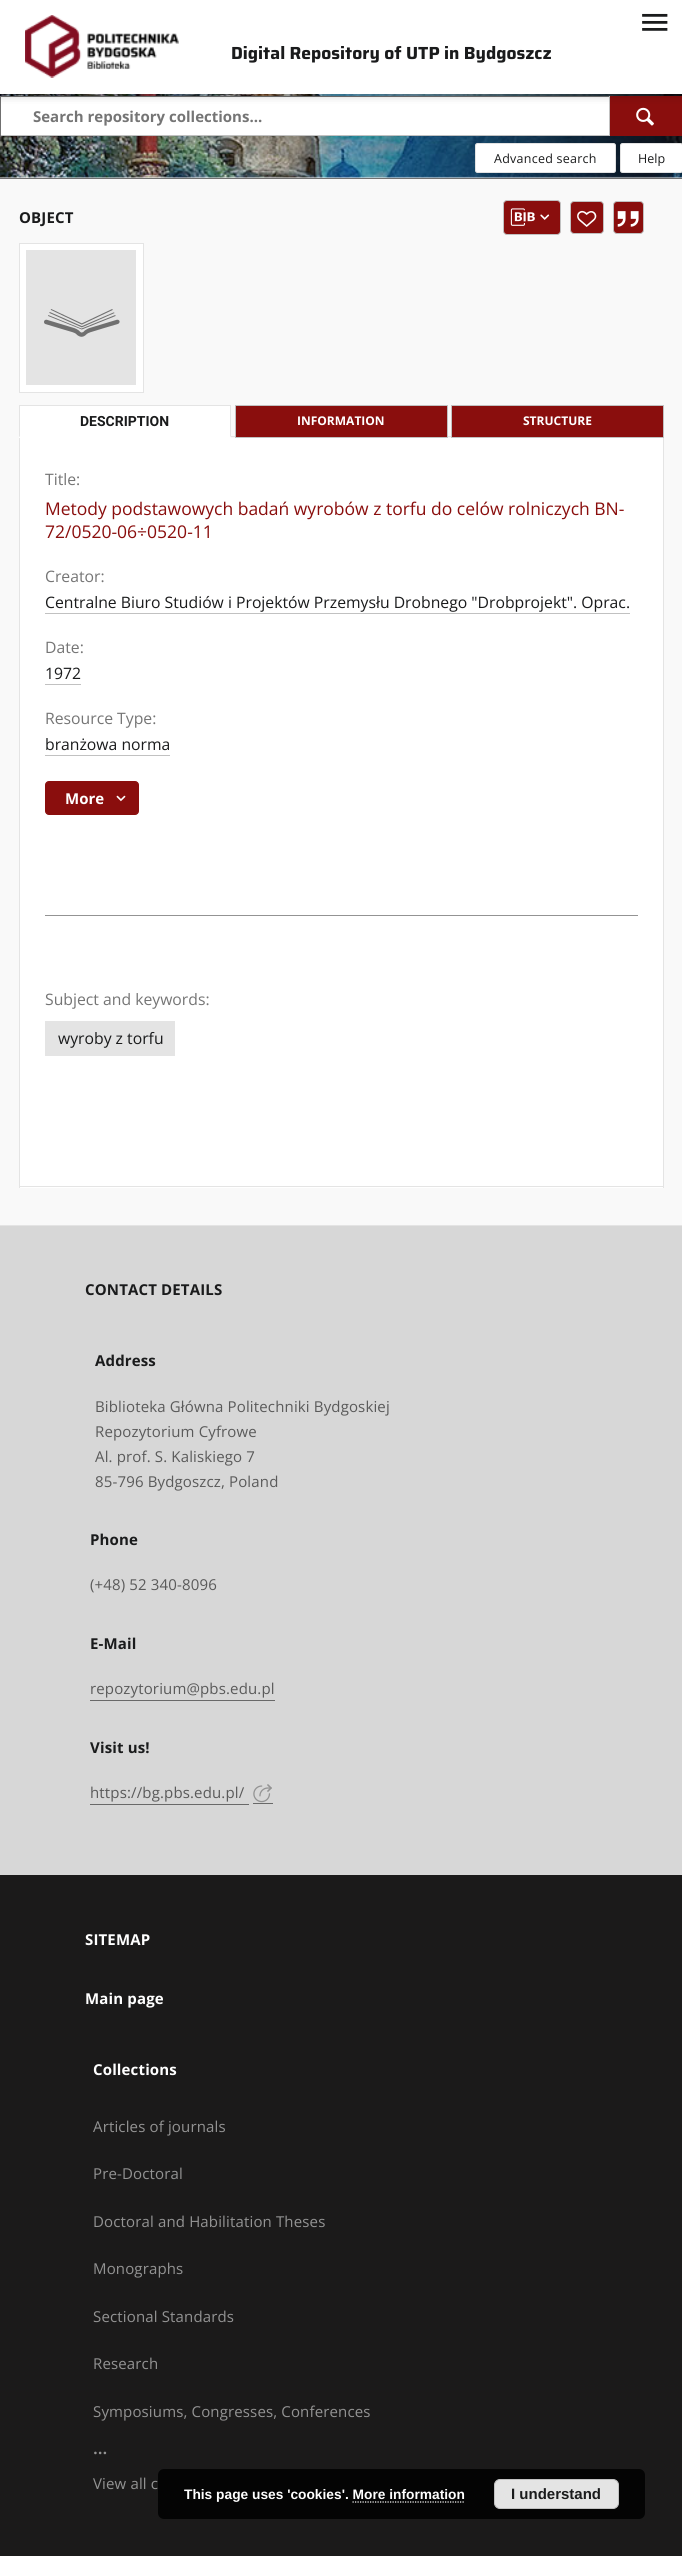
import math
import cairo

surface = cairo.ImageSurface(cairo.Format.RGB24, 682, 2556)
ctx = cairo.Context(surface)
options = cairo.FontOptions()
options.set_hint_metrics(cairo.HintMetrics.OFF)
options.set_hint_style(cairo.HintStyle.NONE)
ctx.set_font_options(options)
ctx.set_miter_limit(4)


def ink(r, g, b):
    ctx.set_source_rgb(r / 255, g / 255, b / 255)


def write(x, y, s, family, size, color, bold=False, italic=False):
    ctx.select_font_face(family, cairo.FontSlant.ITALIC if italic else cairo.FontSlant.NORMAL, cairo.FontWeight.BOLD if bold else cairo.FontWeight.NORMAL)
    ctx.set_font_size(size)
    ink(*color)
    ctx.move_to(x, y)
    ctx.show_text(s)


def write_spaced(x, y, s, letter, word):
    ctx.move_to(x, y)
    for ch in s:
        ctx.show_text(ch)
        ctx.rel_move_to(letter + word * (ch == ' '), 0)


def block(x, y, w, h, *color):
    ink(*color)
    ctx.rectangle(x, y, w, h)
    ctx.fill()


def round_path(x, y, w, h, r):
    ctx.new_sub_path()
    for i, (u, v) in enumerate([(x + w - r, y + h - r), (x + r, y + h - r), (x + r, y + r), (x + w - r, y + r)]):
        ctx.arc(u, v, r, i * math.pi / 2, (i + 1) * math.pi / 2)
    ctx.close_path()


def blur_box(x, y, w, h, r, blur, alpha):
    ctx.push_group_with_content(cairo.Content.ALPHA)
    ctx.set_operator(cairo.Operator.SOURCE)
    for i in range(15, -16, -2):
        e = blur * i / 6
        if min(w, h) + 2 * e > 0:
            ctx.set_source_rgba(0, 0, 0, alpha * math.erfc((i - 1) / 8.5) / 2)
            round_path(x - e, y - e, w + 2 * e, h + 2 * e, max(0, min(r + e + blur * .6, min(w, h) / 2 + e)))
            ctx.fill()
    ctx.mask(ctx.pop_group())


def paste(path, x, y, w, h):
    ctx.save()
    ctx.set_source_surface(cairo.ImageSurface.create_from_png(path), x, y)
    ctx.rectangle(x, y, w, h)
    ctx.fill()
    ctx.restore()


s1 = dict(family="Saira", size=17.5, color=(26, 27, 28), bold=True)
s2 = dict(family="Open Sans", size=15, color=(117, 117, 117), bold=True)
s3 = dict(family="Open Sans", size=12.5, color=(26, 27, 28))
s4 = dict(family="Roboto", size=14, color=(26, 27, 28), bold=True)
s5 = dict(family="Open Sans", size=12, color=(255, 255, 255), bold=True)
s6 = dict(family="Open Sans", size=15.75, color=(117, 117, 117))
s7 = dict(family="Open Sans", size=17.5, color=(138, 14, 13))
s8 = dict(family="Open Sans", size=15.75, color=(26, 27, 28))
s9 = dict(family="Open Sans", size=15, color=(255, 255, 255), bold=True)
s10 = dict(family="Open Sans SemiBold", size=17.5, color=(147, 147, 147))
s11 = dict(family="Liberation Sans", size=13.75, color=(255, 255, 255), bold=True)
s12 = dict(family="Liberation Sans", size=15, color=(26, 27, 28), bold=True)

ink(249, 249, 249)
ctx.paint()
block(0, 177, 682, 1, 245, 245, 245)
paste("pic3.png", 0, 94, 682, 84)
block(1, 97, 608, 38, 255, 255, 255)
block(0, 96, 610, 1, 112, 112, 112)
block(609, 96, 1, 40, 193, 193, 193)
block(0, 135, 610, 1, 193, 193, 193)
block(0, 96, 1, 40, 112, 112, 112)
block(610, 96, 72, 40, 138, 14, 13)
paste("pic4.png", 636, 107, 18, 19)
ink(0, 0, 0)
blur_box(0, 1, 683, 94, 0, 6, 0.08)
blur_box(0, 5, 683, 94, 0, 3, 0.06)
blur_box(1, 4, 680, 91, 0, 2.5, 0.06)
block(0, 0, 682, 94, 255, 255, 255)
paste("pic1.png", 642, 13, 26, 18)
paste("pic2.png", 25, 15, 154, 63)
write(231, 59, "Digital Repository of UTP in Bydgoszcz", **s1)
block(0, 178, 682, 1, 112, 112, 112)
write(33, 122, "Search repository collections...", **s2)
ink(255, 255, 255)
round_path(475.5, 143.5, 140, 29, 2)
ctx.fill_preserve()
ink(226, 226, 226)
ctx.set_line_width(1)
ctx.stroke()
ctx.select_font_face("Open Sans")
ctx.set_font_size(12.5)
ink(26, 27, 28)
write_spaced(494, 163, "Advanced search", 0.25, 0)
ink(255, 255, 255)
round_path(620.5, 143.5, 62, 29, 2)
ctx.fill_preserve()
ink(226, 226, 226)
ctx.stroke()
write(638, 163, "Help", **s3)
ctx.select_font_face("Open Sans", cairo.FontSlant.NORMAL, cairo.FontWeight.BOLD)
ctx.set_font_size(15)
write_spaced(19, 223, "OBJECT", 0.15, 0)
ink(138, 14, 13)
round_path(503.5, 200.5, 57, 34, 3.5)
ctx.fill_preserve()
ink(193, 193, 193)
ctx.stroke()
paste("pic5.png", 510, 208, 25, 18)
paste("pic6.png", 540, 214, 10, 6)
ink(138, 14, 13)
round_path(570.5, 201.5, 33, 32, 3.5)
ctx.fill_preserve()
ink(193, 193, 193)
ctx.stroke()
paste("pic7.png", 577, 210, 20, 17)
ink(138, 14, 13)
round_path(613.5, 201.5, 30, 32, 3.5)
ctx.fill_preserve()
ink(193, 193, 193)
ctx.stroke()
paste("pic8.png", 617, 211, 22, 16)
ink(255, 255, 255)
ctx.rectangle(19.5, 243.5, 124, 149)
ctx.fill_preserve()
ink(228, 228, 228)
ctx.stroke()
block(26, 250, 110, 135, 228, 228, 228)
paste("pic9.png", 44, 309, 76, 28)
block(231, 436, 220, 1, 228, 228, 228)
block(19, 406, 212, 32, 255, 255, 255)
block(19, 405, 212, 1, 228, 228, 228)
ctx.new_path()
ctx.move_to(231, 405)
ctx.line_to(231, 437.5)
ctx.line_to(230, 436)
ctx.line_to(230, 406)
ctx.close_path()
ctx.fill()
ctx.new_path()
ctx.move_to(19, 437.5)
ctx.line_to(19, 405)
ctx.line_to(20, 406)
ctx.line_to(20, 436)
ctx.close_path()
ctx.fill()
write(80, 426, "DESCRIPTION", **s4)
ink(138, 14, 13)
ctx.rectangle(235.5, 405.5, 212, 32)
ctx.fill_preserve()
ink(193, 193, 193)
ctx.stroke()
write(297, 425, "INFORMATION", **s5)
ink(138, 14, 13)
ctx.rectangle(451.5, 405.5, 212, 32)
ctx.fill_preserve()
ink(193, 193, 193)
ctx.stroke()
write(523, 425, "STRUCTURE", **s5)
block(20, 438, 643, 750, 255, 255, 255)
block(663, 438, 1, 750, 228, 228, 228)
block(19, 1186, 645, 1, 228, 228, 228)
block(19, 438, 1, 750, 228, 228, 228)
write(45, 485, "Title:", **s6)
write(45, 515, "Metody podstawowych badań wyrobów z torfu do celów rolniczych BN-", **s7)
write(45, 538, "72/0520-06÷0520-11", **s7)
write(45, 582, "Creator:", **s6)
write(45, 608, "Centralne Biuro Studiów i Projektów Przemysłu Drobnego \"Drobprojekt\". Oprac.", **s8)
block(45, 613, 585, 1, 193, 193, 193)
write(45, 653, "Date:", **s6)
write(45, 679, "1972", **s8)
block(45, 684, 36, 1, 193, 193, 193)
write(45, 724, "Resource Type:", **s6)
write(45, 750, "branżowa norma", **s8)
block(45, 755, 125, 1, 193, 193, 193)
ink(138, 14, 13)
round_path(45.5, 781.5, 93, 33, 3.5)
ctx.fill_preserve()
ctx.stroke()
write(65, 804, "More", **s9)
paste("pic10.png", 116, 795, 10, 7)
block(45, 915, 593, 1, 147, 147, 147)
write(45, 1005, "Subject and keywords:", **s6)
block(45, 1021, 130, 35, 228, 228, 228)
write(58, 1044, "wyroby z torfu", **s8)
block(0, 1226, 682, 649, 215, 215, 215)
block(0, 1225, 682, 1, 228, 228, 228)
ctx.select_font_face("Open Sans", cairo.FontSlant.NORMAL, cairo.FontWeight.BOLD)
ctx.set_font_size(15)
ink(26, 27, 28)
write_spaced(85, 1295, "CONTACT DETAILS", 0.15, 0)
write_spaced(95, 1366, "Address", 0.15, 0)
ctx.select_font_face("Open Sans")
ink(90, 90, 90)
write_spaced(95, 1412, "Biblioteka Główna Politechniki Bydgoskiej", 0.15, 0)
write_spaced(95, 1437, "Repozytorium Cyfrowe", 0.15, 0)
write_spaced(95, 1462, "Al. prof. S. Kaliskiego 7", 0.15, 0)
write_spaced(95, 1487, "85-796 Bydgoszcz, Poland", 0.15, 0)
ctx.select_font_face("Open Sans", cairo.FontSlant.NORMAL, cairo.FontWeight.BOLD)
ink(26, 27, 28)
write_spaced(90, 1545, "Phone", 0.15, 0)
ctx.select_font_face("Open Sans")
ink(90, 90, 90)
write_spaced(90, 1590, "(+48) 52 340-8096", 0.15, 0)
ctx.select_font_face("Open Sans", cairo.FontSlant.NORMAL, cairo.FontWeight.BOLD)
ink(26, 27, 28)
write_spaced(90, 1649, "E-Mail", 0.15, 0)
ctx.select_font_face("Open Sans")
ink(90, 90, 90)
write_spaced(90, 1694, "repozytorium@pbs.edu.pl", 0.15, 0)
block(90, 1700, 185, 1, 105, 105, 105)
ctx.select_font_face("Open Sans", cairo.FontSlant.NORMAL, cairo.FontWeight.BOLD)
ink(26, 27, 28)
write_spaced(90, 1753, "Visit us!", 0.15, 0)
ctx.select_font_face("Open Sans")
ink(90, 90, 90)
write_spaced(90, 1798, "https://bg.pbs.edu.pl/", 0.15, 0)
block(90, 1804, 159, 1, 105, 105, 105)
block(253, 1803, 20, 1, 105, 105, 105)
paste("pic11.png", 253, 1784, 19, 19)
block(0, 1875, 682, 681, 27, 26, 26)
ctx.select_font_face("Open Sans", cairo.FontSlant.NORMAL, cairo.FontWeight.BOLD)
ink(255, 255, 255)
write_spaced(85, 1945, "SITEMAP", 0.15, 0)
write_spaced(85, 2004, "Main page", 0.15, 0)
write_spaced(93, 2075, "Collections", 0.15, 0)
ctx.select_font_face("Open Sans")
ink(147, 147, 147)
write_spaced(93, 2132, "Articles of journals", 0.15, 0)
write_spaced(93, 2179, "Pre-Doctoral", 0.15, 0)
write_spaced(93, 2227, "Doctoral and Habilitation Theses", 0.15, 0)
write_spaced(93, 2274, "Monographs", 0.15, 0)
write_spaced(93, 2322, "Sectional Standards", 0.15, 0)
write_spaced(93, 2369, "Research", 0.15, 0)
write_spaced(93, 2417, "Symposiums, Congresses, Conferences", 0.15, 0)
write(93, 2454, "...", **s10)
ctx.select_font_face("Open Sans")
ctx.set_font_size(15)
write_spaced(93, 2489, "View all c", 0.15, 0)
ctx.set_source_rgba(0, 0, 0, 0.85)
round_path(158, 2469, 487, 50, 6)
ctx.fill()
write(184, 2499, "This page uses 'cookies'. More information", **s11)
ink(228, 228, 228)
round_path(494.5, 2479.5, 124, 29, 5.5)
ctx.fill_preserve()
ink(193, 193, 193)
ctx.stroke()
write(511, 2499, "I understand", **s12)
ctx.new_path()
ctx.move_to(352.5, 2502)
ctx.line_to(465, 2502)
ink(255, 255, 255)
ctx.set_line_width(1.2)
ctx.set_dash([1.25, 1.25])
ctx.stroke()
surface.write_to_png("screenshot.png")
